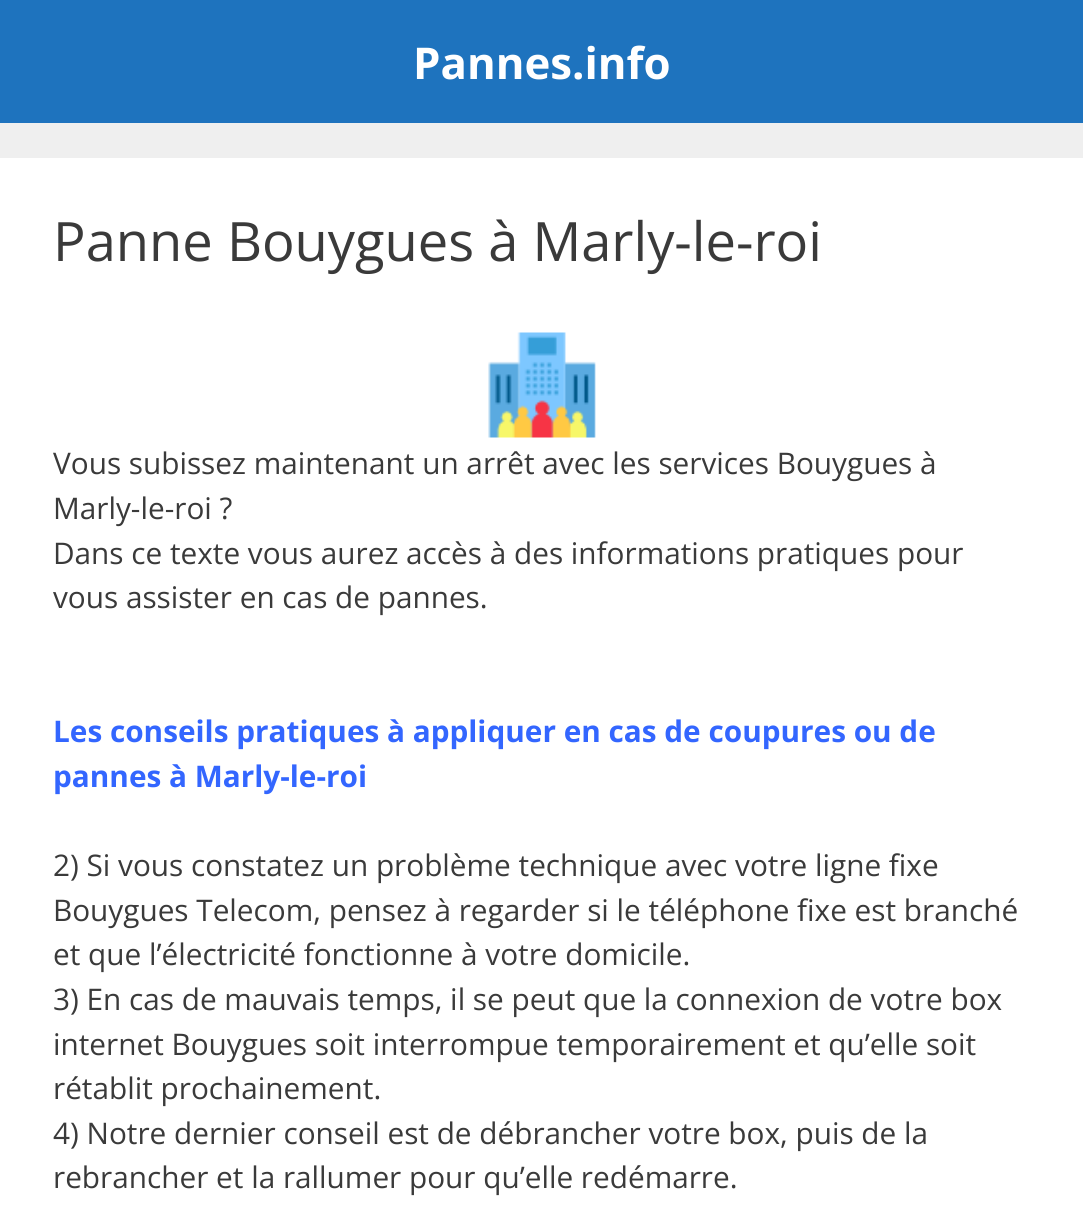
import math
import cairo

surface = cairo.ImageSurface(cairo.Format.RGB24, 1083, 1205)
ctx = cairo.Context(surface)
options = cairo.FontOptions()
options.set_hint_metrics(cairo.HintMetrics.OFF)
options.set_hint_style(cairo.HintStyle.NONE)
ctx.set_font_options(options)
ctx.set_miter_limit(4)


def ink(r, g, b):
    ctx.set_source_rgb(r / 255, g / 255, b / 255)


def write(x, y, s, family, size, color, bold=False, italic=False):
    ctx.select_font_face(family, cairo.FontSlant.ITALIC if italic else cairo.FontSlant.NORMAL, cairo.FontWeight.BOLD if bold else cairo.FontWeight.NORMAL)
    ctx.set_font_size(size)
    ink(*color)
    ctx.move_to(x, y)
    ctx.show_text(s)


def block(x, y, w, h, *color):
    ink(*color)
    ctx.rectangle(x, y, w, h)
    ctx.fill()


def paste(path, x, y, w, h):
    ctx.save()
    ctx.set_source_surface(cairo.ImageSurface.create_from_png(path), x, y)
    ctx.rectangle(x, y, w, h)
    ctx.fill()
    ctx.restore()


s1 = dict(family="Open Sans", size=43.75, color=(255, 255, 255), bold=True)
s2 = dict(family="Open Sans", size=54.25, color=(58, 58, 58))
s3 = dict(family="Open Sans", size=29.75, color=(58, 58, 58))
s4 = dict(family="Open Sans", size=29.75, color=(51, 102, 255), bold=True)

ink(239, 239, 239)
ctx.paint()
block(0, 0, 1083, 123, 30, 115, 190)
write(413, 79, "Pannes.info", **s1)
block(0, 158, 1083, 1047, 255, 255, 255)
write(53, 261, "Panne Bouygues à Marly-le-roi", **s2)
paste("pic1.png", 488, 332, 108, 106)
write(53, 474, "Vous subissez maintenant un arrêt avec les services Bouygues à", **s3)
write(53, 519, "Marly-le-roi ?", **s3)
write(53, 564, "Dans ce texte vous aurez accès à des informations pratiques pour", **s3)
write(53, 608, "vous assister en cas de pannes.", **s3)
write(53, 742, "Les conseils pratiques à appliquer en cas de coupures ou de", **s4)
write(53, 787, "pannes à Marly-le-roi", **s4)
write(53, 876, "2) Si vous constatez un problème technique avec votre ligne fixe", **s3)
write(53, 921, "Bouygues Telecom, pensez à regarder si le téléphone fixe est branché", **s3)
write(53, 965, "et que l’électricité fonctionne à votre domicile.", **s3)
write(53, 1010, "3) En cas de mauvais temps, il se peut que la connexion de votre box", **s3)
write(53, 1055, "internet Bouygues soit interrompue temporairement et qu’elle soit", **s3)
write(53, 1099, "rétablit prochainement.", **s3)
write(53, 1144, "4) Notre dernier conseil est de débrancher votre box, puis de la", **s3)
write(53, 1188, "rebrancher et la rallumer pour qu’elle redémarre.", **s3)
surface.write_to_png("screenshot.png")
